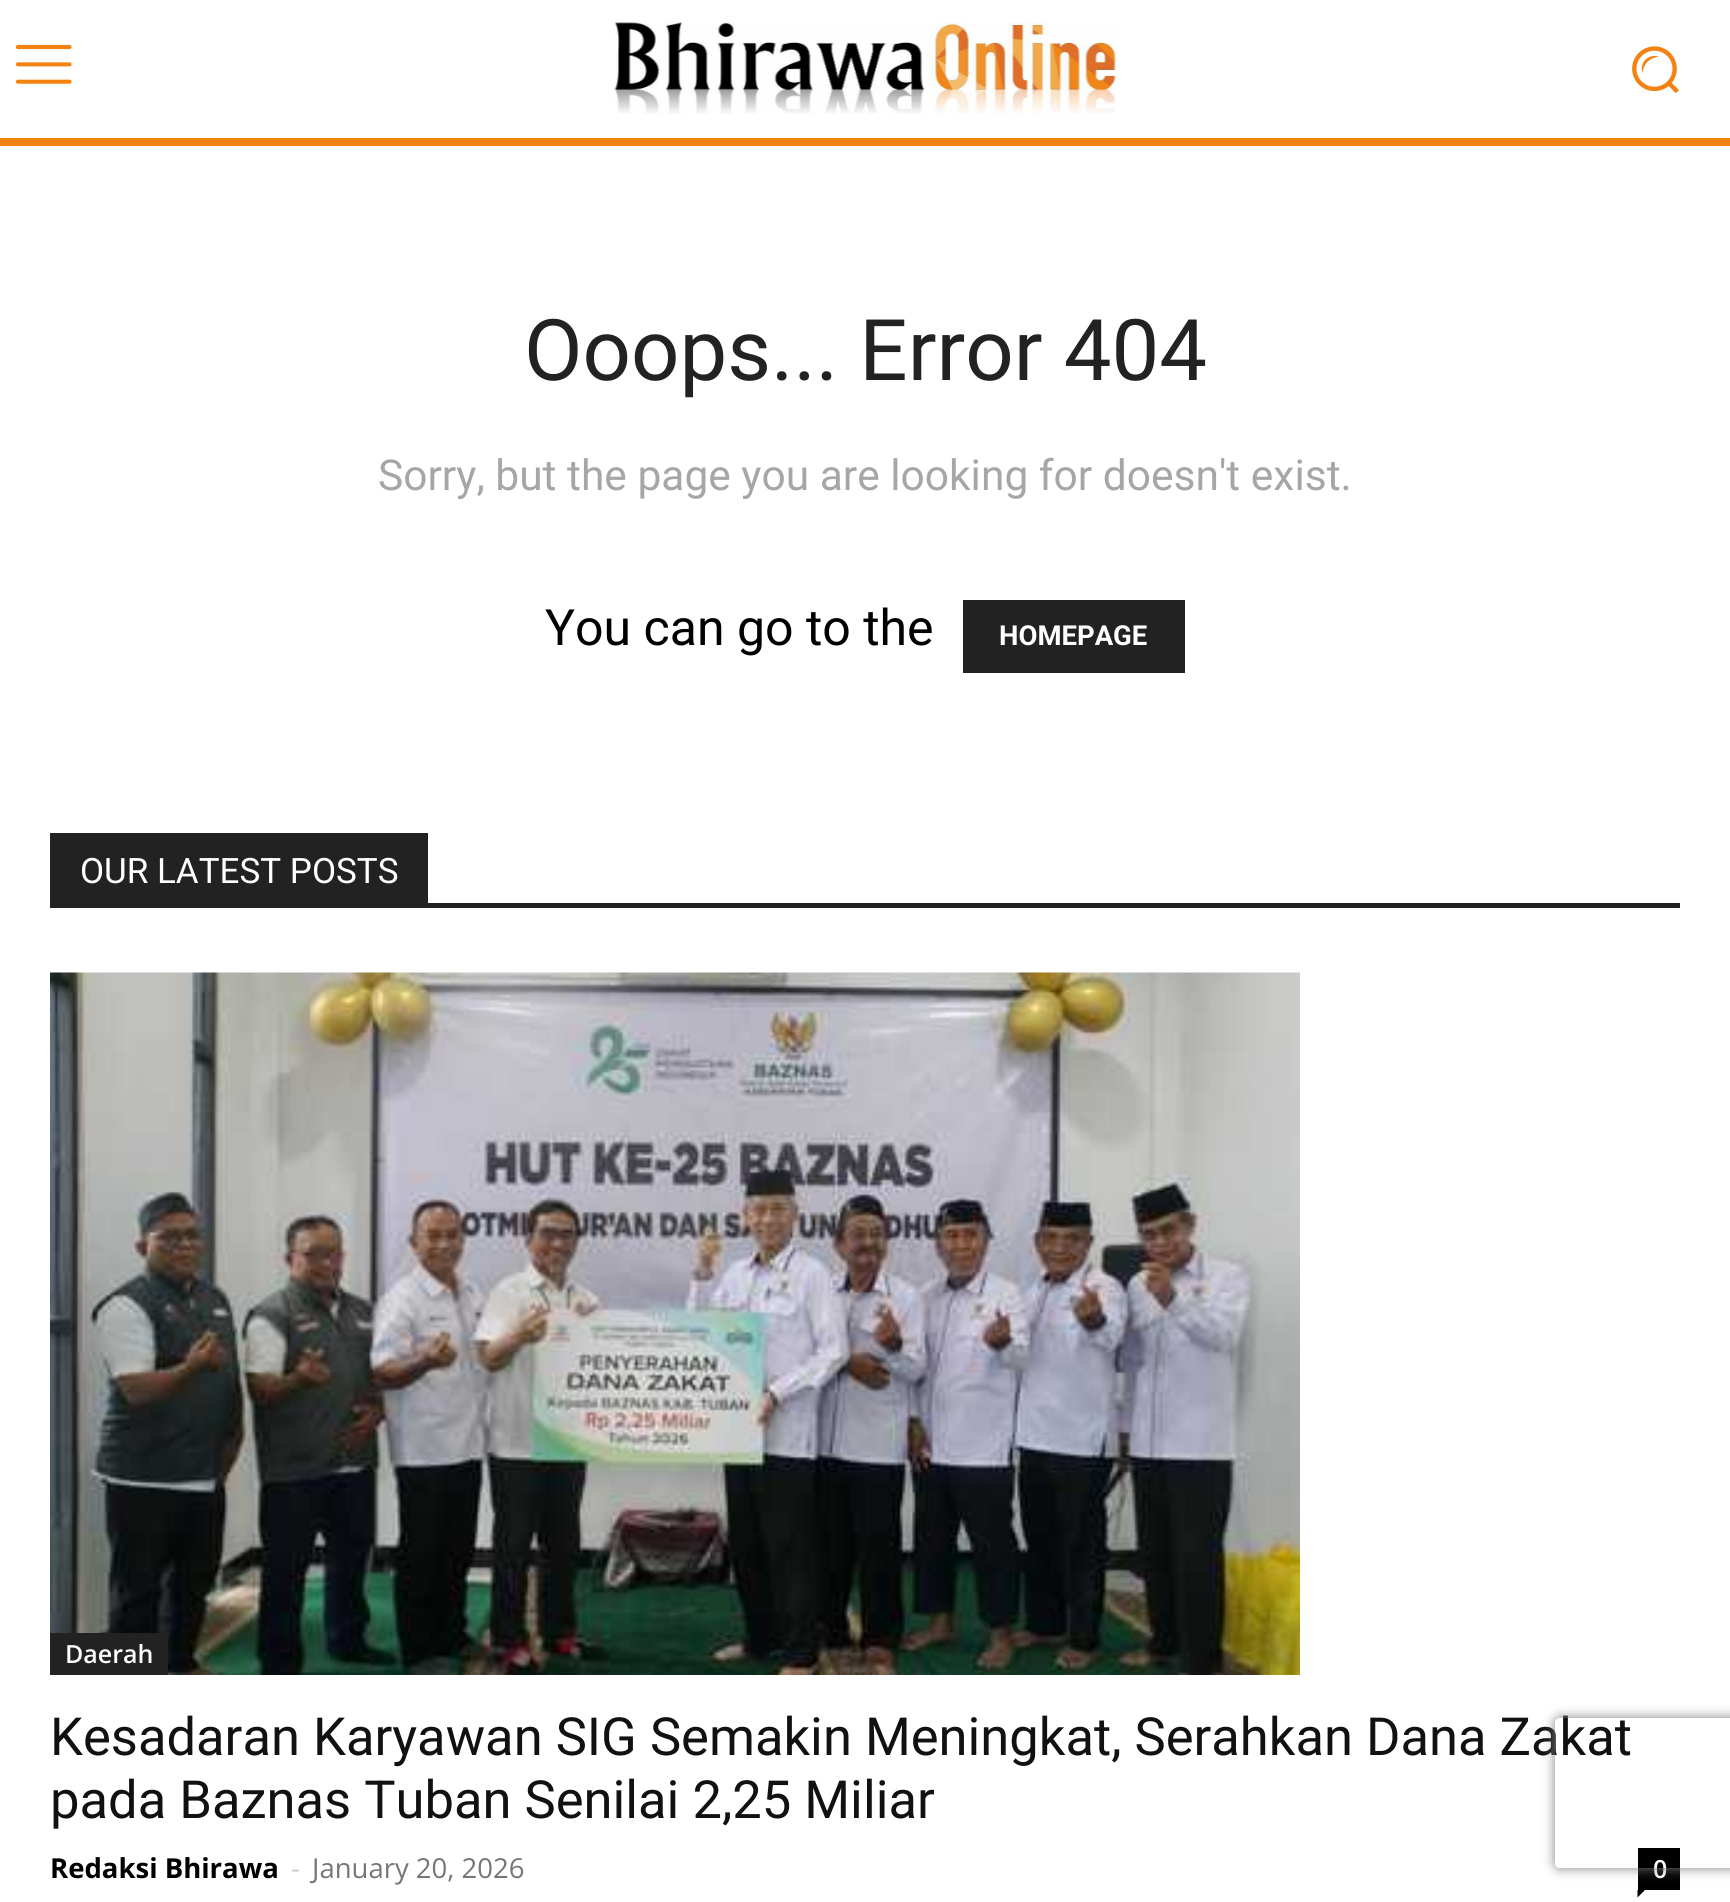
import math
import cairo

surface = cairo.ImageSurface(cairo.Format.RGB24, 1730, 1902)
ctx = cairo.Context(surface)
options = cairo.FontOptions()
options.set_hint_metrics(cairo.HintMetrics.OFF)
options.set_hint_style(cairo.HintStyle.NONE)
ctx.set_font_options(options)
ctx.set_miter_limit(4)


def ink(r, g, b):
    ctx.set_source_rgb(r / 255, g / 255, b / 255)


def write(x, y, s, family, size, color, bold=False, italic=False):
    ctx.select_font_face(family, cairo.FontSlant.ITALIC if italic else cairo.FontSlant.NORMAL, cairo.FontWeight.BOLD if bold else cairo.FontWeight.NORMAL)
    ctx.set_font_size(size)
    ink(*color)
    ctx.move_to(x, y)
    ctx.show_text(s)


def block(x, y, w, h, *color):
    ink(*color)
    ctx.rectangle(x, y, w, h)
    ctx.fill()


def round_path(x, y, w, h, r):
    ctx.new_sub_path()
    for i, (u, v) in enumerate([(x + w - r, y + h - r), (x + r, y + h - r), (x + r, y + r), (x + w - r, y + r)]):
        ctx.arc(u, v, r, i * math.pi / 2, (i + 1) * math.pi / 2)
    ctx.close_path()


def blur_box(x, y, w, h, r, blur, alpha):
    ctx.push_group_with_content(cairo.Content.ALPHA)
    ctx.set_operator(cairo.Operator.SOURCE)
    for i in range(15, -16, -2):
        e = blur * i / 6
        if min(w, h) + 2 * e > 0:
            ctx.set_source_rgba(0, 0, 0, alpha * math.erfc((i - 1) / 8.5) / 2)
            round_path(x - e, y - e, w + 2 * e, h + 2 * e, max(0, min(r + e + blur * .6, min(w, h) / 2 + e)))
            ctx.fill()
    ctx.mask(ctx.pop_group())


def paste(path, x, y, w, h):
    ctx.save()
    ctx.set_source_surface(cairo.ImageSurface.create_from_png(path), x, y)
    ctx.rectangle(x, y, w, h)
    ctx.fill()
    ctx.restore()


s1 = dict(family="Roboto", size=85, color=(34, 34, 34))
s2 = dict(family="Roboto", size=42.5, color=(166, 166, 166))
s3 = dict(family="Roboto", size=50, color=(0, 0, 0))
s4 = dict(family="Roboto", size=27.5, color=(255, 255, 255), bold=True)
s5 = dict(family="Roboto", size=35, color=(255, 255, 255))
s6 = dict(family="Open Sans SemiBold", size=25, color=(255, 255, 255))
s7 = dict(family="Roboto", size=52.5, color=(17, 17, 17))
s8 = dict(family="Open Sans", size=27.5, color=(0, 0, 0), bold=True)
s9 = dict(family="Open Sans", size=27.5, color=(204, 204, 204))
s10 = dict(family="Open Sans", size=27.5, color=(118, 118, 118))

ink(255, 255, 255)
ctx.paint()
paste("pic1.png", 15, 44, 57, 40)
paste("pic2.png", 614, 22, 502, 92)
paste("pic3.png", 1632, 46, 47, 48)
block(0, 138, 1730, 8, 244, 130, 17)
write(524, 380, "Ooops... Error 404", **s1)
write(378, 490, "Sorry, but the page you are looking for doesn't exist.", **s2)
write(545, 645, "You can go to the", **s3)
block(963, 600, 222, 73, 34, 34, 34)
write(999, 645, "HOMEPAGE", **s4)
block(50, 903, 1630, 5, 34, 34, 34)
block(50, 833, 378, 70, 34, 34, 34)
write(80, 883, "OUR LATEST POSTS", **s5)
paste("pic4.png", 50, 972, 1250, 703)
block(50, 1633, 118, 42, 34, 34, 34)
write(65, 1663, "Daerah", **s6)
write(50, 1755, "Kesadaran Karyawan SIG Semakin Meningkat, Serahkan Dana Zakat", **s7)
write(50, 1818, "pada Baznas Tuban Senilai 2,25 Miliar", **s7)
write(50, 1878, "Redaksi Bhirawa", **s8)
write(291, 1878, "-", **s9)
write(312, 1878, "January 20, 2026", **s10)
block(1638, 1848, 42, 42, 0, 0, 0)
write(1653, 1878, "0", **s6)
ink(0, 0, 0)
ctx.new_path()
ctx.move_to(1637.5, 1890)
ctx.line_to(1645, 1890)
ctx.line_to(1637.5, 1897.5)
ctx.close_path()
ctx.fill()
ctx.save()
ctx.set_fill_rule(cairo.FillRule.EVEN_ODD)
ctx.new_path()
ctx.move_to(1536, 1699)
ctx.line_to(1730, 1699)
ctx.line_to(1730, 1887)
ctx.line_to(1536, 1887)
ctx.close_path()
ctx.move_to(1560, 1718)
ctx.line_to(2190, 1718)
ctx.curve_to(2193, 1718, 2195, 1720, 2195, 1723)
ctx.line_to(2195, 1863)
ctx.curve_to(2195, 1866, 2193, 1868, 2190, 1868)
ctx.line_to(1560, 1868)
ctx.curve_to(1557, 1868, 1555, 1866, 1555, 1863)
ctx.line_to(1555, 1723)
ctx.curve_to(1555, 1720, 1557, 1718, 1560, 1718)
ctx.close_path()
ctx.clip()
ink(128, 128, 128)
blur_box(1555, 1718, 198, 150, 5, 6, 1)
ctx.restore()
surface.write_to_png("screenshot.png")
